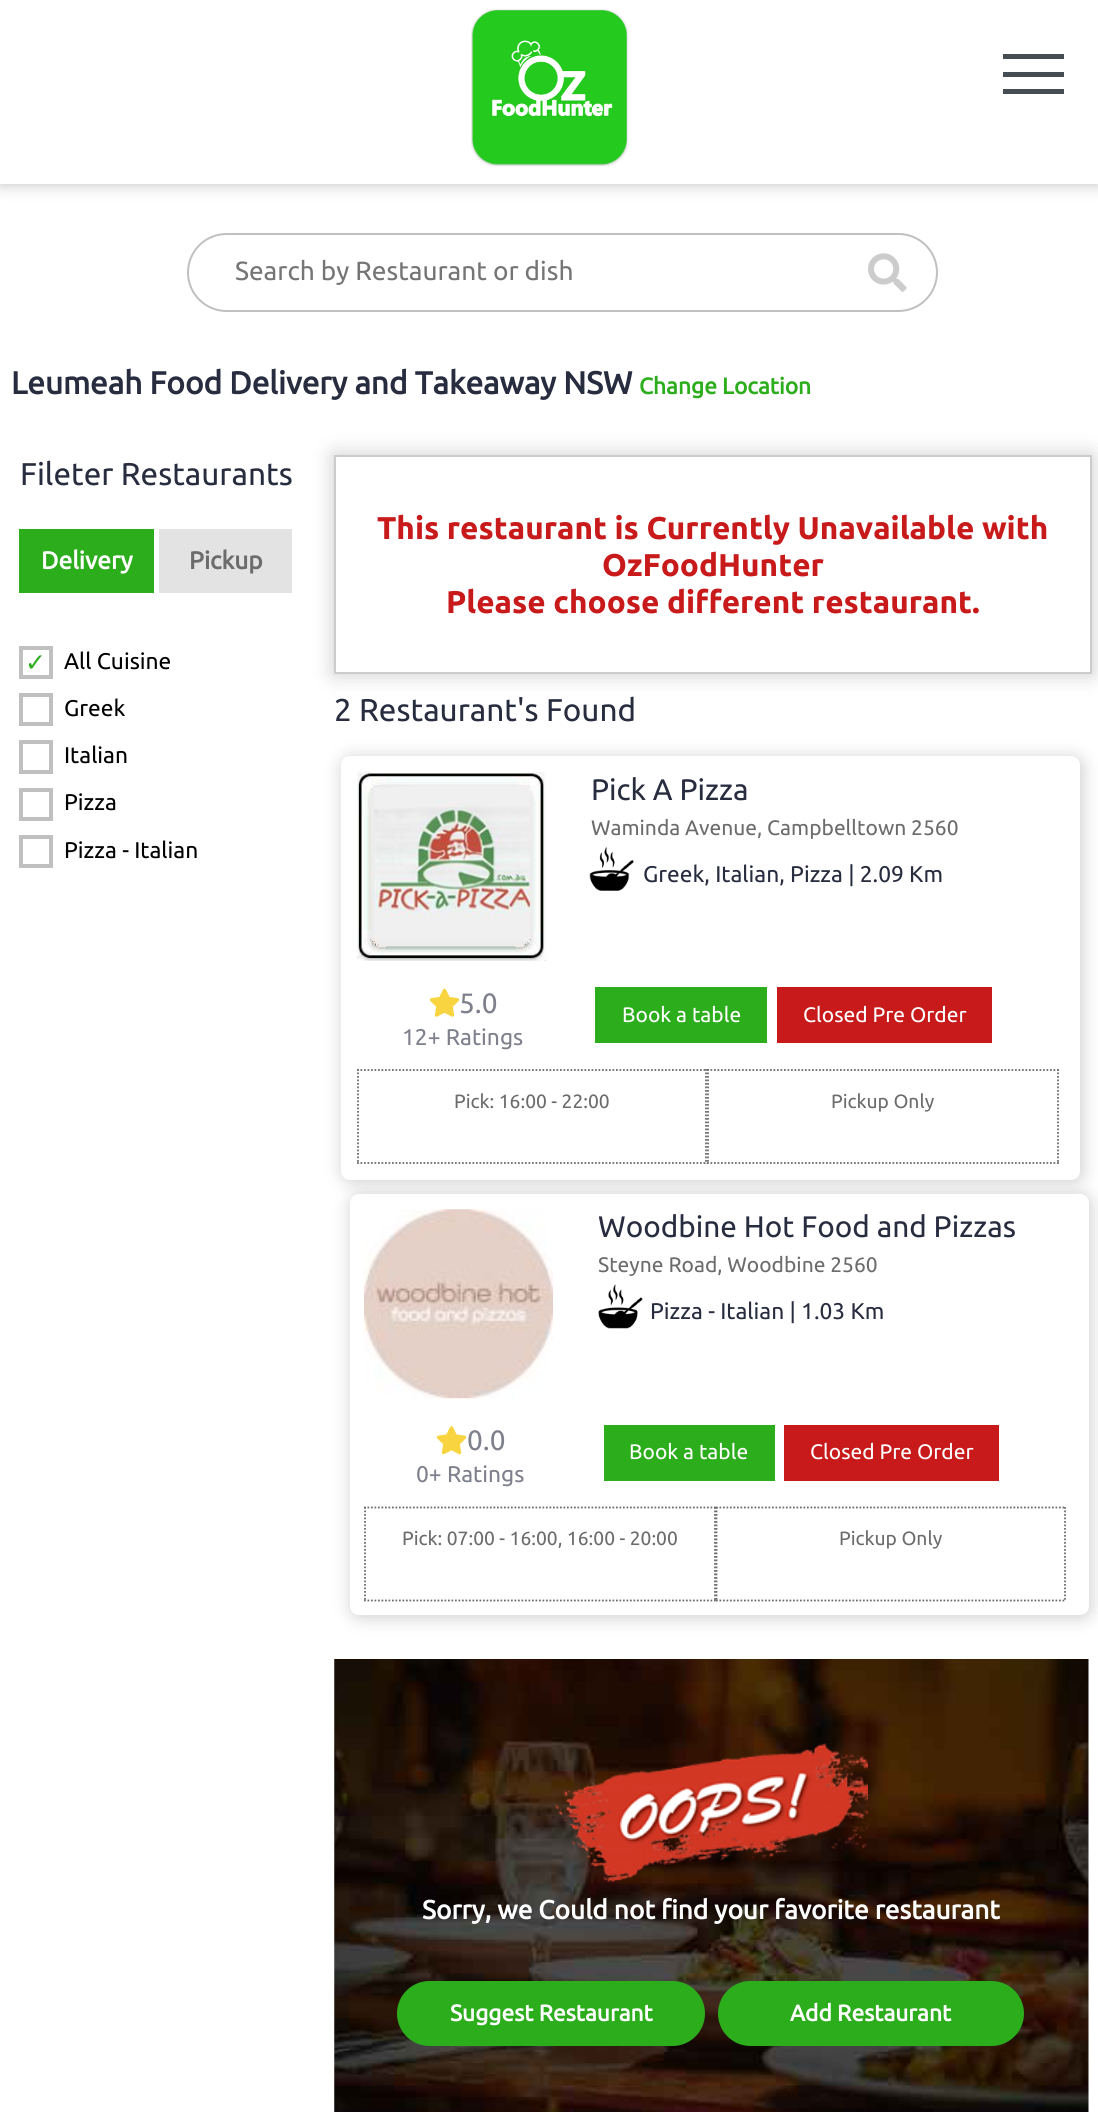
import math
import cairo

surface = cairo.ImageSurface(cairo.Format.RGB24, 1098, 2112)
ctx = cairo.Context(surface)
options = cairo.FontOptions()
options.set_hint_metrics(cairo.HintMetrics.OFF)
options.set_hint_style(cairo.HintStyle.NONE)
ctx.set_font_options(options)
ctx.set_miter_limit(4)


def ink(r, g, b):
    ctx.set_source_rgb(r / 255, g / 255, b / 255)


def write(x, y, s, family, size, color, bold=False, italic=False):
    ctx.select_font_face(family, cairo.FontSlant.ITALIC if italic else cairo.FontSlant.NORMAL, cairo.FontWeight.BOLD if bold else cairo.FontWeight.NORMAL)
    ctx.set_font_size(size)
    ink(*color)
    ctx.move_to(x, y)
    ctx.show_text(s)


def block(x, y, w, h, *color):
    ink(*color)
    ctx.rectangle(x, y, w, h)
    ctx.fill()


def round_path(x, y, w, h, r):
    ctx.new_sub_path()
    for i, (u, v) in enumerate([(x + w - r, y + h - r), (x + r, y + h - r), (x + r, y + r), (x + w - r, y + r)]):
        ctx.arc(u, v, r, i * math.pi / 2, (i + 1) * math.pi / 2)
    ctx.close_path()


def blur_box(x, y, w, h, r, blur, alpha):
    ctx.push_group_with_content(cairo.Content.ALPHA)
    ctx.set_operator(cairo.Operator.SOURCE)
    for i in range(15, -16, -2):
        e = blur * i / 6
        if min(w, h) + 2 * e > 0:
            ctx.set_source_rgba(0, 0, 0, alpha * math.erfc((i - 1) / 8.5) / 2)
            round_path(x - e, y - e, w + 2 * e, h + 2 * e, max(0, min(r + e + blur * .6, min(w, h) / 2 + e)))
            ctx.fill()
    ctx.mask(ctx.pop_group())


def paste(path, x, y, w, h):
    ctx.save()
    ctx.set_source_surface(cairo.ImageSurface.create_from_png(path), x, y)
    ctx.rectangle(x, y, w, h)
    ctx.fill()
    ctx.restore()


s1 = dict(family="Ubuntu", size=26.25, color=(117, 117, 117))
s2 = dict(family="Ubuntu", size=31.5, color=(40, 44, 63), bold=True)
s3 = dict(family="Ubuntu", size=22.75, color=(44, 173, 28), bold=True)
s4 = dict(family="Ubuntu", size=31.5, color=(40, 44, 63))
s5 = dict(family="Ubuntu", size=24.5, color=(255, 255, 255), bold=True)
s6 = dict(family="Ubuntu", size=24.5, color=(108, 108, 108), bold=True)
s7 = dict(family="Ubuntu", size=22.75, color=(0, 0, 0))
s8 = dict(family="DejaVu Sans", size=25, color=(44, 173, 28))
s9 = dict(family="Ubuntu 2", size=31.5, color=(200, 26, 27), bold=True)
s10 = dict(family="Ubuntu", size=29.75, color=(40, 44, 63))
s11 = dict(family="Ubuntu", size=21, color=(108, 108, 108))
s12 = dict(family="Ubuntu", size=22.75, color=(40, 44, 63))
s13 = dict(family="Ubuntu", size=28, color=(126, 128, 140))
s14 = dict(family="Ubuntu", size=22.75, color=(126, 128, 140))
s15 = dict(family="Ubuntu", size=21, color=(255, 255, 255))
s16 = dict(family="Ubuntu", size=19.25, color=(108, 108, 108))
s17 = dict(family="Ubuntu", size=26.25, color=(255, 255, 255), bold=True)
s18 = dict(family="Ubuntu", size=22.75, color=(255, 255, 255), bold=True)

ink(255, 255, 255)
ctx.paint()
ink(204, 204, 204)
blur_box(0, 2, 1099, 184, 0, 7, 1)
block(0, 0, 1098, 184, 255, 255, 255)
paste("pic1.png", 471, 9, 158, 158)
block(1003, 72, 61, 5, 69, 76, 82)
block(1003, 54, 61, 5, 69, 76, 82)
block(1003, 89, 61, 5, 69, 76, 82)
round_path(188, 234, 749, 77, 38.5)
ink(192, 192, 192)
ctx.stroke()
write(235, 280, "Search by Restaurant or dish", **s1)
paste("pic2.png", 868, 253, 39, 39)
write(11, 394, "Leumeah Food Delivery and Takeaway NSW", **s2)
write(639, 394, "Change Location", **s3)
write(20, 485, "Fileter Restaurants", **s4)
block(19, 529, 135, 64, 44, 173, 28)
write(41, 569, "Delivery", **s5)
block(159, 529, 133, 64, 227, 227, 227)
write(189, 569, "Pickup", **s6)
ctx.rectangle(21, 648, 30, 29)
ink(192, 192, 192)
ctx.set_line_width(4)
ctx.stroke()
write(64, 669, "All Cuisine", **s7)
write(25, 671, "✓", **s8)
ctx.rectangle(21, 695, 30, 29)
ink(192, 192, 192)
ctx.stroke()
write(64, 716, "Greek", **s7)
ctx.rectangle(21, 742, 30, 30)
ink(192, 192, 192)
ctx.stroke()
write(64, 763, "Italian", **s7)
ctx.rectangle(21, 790, 30, 29)
ink(192, 192, 192)
ctx.stroke()
write(64, 810, "Pizza", **s7)
ctx.rectangle(21, 837, 30, 29)
ink(192, 192, 192)
ctx.stroke()
write(64, 858, "Pizza - Italian", **s7)
ctx.save()
ctx.set_fill_rule(cairo.FillRule.EVEN_ODD)
ctx.new_path()
ctx.move_to(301, 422)
ctx.line_to(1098, 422)
ctx.line_to(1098, 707)
ctx.line_to(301, 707)
ctx.close_path()
ctx.move_to(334, 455)
ctx.line_to(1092, 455)
ctx.line_to(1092, 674)
ctx.line_to(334, 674)
ctx.close_path()
ctx.clip()
ink(204, 204, 204)
blur_box(334, 455, 758, 219, 0, 10.5, 1)
ctx.restore()
ctx.rectangle(335, 456, 756, 217)
ink(204, 204, 204)
ctx.set_line_width(2)
ctx.stroke()
write(377, 539, "This restaurant is Currently Unavailable with", **s9)
write(602, 576, "OzFoodHunter", **s9)
write(446, 613, "Please choose different restaurant.", **s9)
write(334, 721, "2 Restaurant's Found", **s4)
ink(204, 204, 204)
blur_box(343, 758, 739, 423, 9, 9, 1)
ink(255, 255, 255)
round_path(341, 756, 739, 424, 9)
ctx.fill()
paste("pic3.png", 357, 771, 189, 190)
write(591, 800, "Pick A Pizza", **s10)
write(591, 835, "Waminda Avenue, Campbelltown 2560", **s11)
paste("pic4.png", 589, 847, 45, 44)
write(643, 882, "Greek, Italian, Pizza | 2.09 Km", **s12)
paste("pic5.png", 429, 988, 31, 29)
write(459, 1013, "5.0", **s13)
write(402, 1045, "12+ Ratings", **s14)
block(595, 987, 172, 56, 44, 173, 28)
write(622, 1022, "Book a table", **s15)
block(777, 987, 215, 56, 200, 26, 27)
write(803, 1022, "Closed Pre Order", **s15)
ctx.new_path()
ctx.move_to(357, 1070)
ctx.line_to(707, 1070)
ink(108, 108, 108)
ctx.set_line_width(1.8)
ctx.set_dash([1.75, 1.75])
ctx.stroke()
ctx.new_path()
ctx.move_to(706, 1069)
ctx.line_to(706, 1164)
ctx.stroke()
ctx.new_path()
ctx.move_to(357, 1163)
ctx.line_to(707, 1163)
ctx.stroke()
ctx.new_path()
ctx.move_to(358, 1069)
ctx.line_to(358, 1164)
ctx.stroke()
write(454, 1108, "Pick: 16:00 - 22:00", **s16)
ctx.new_path()
ctx.move_to(707, 1070)
ctx.line_to(1059, 1070)
ctx.stroke()
ctx.new_path()
ctx.move_to(1058, 1069)
ctx.line_to(1058, 1164)
ctx.stroke()
ctx.new_path()
ctx.move_to(707, 1163)
ctx.line_to(1059, 1163)
ctx.stroke()
ctx.new_path()
ctx.move_to(708, 1069)
ctx.line_to(708, 1164)
ctx.stroke()
write(831, 1108, "Pickup Only", **s16)
ink(204, 204, 204)
blur_box(352, 1195, 738, 422, 9, 9, 1)
ink(255, 255, 255)
round_path(350, 1194, 739, 421, 9)
ctx.fill()
paste("pic6.png", 364, 1209, 189, 190)
write(598, 1237, "Woodbine Hot Food and Pizzas", **s10)
write(598, 1272, "Steyne Road, Woodbine 2560", **s11)
paste("pic7.png", 598, 1284, 45, 45)
write(650, 1319, "Pizza - Italian | 1.03 Km", **s12)
paste("pic8.png", 436, 1426, 31, 29)
write(467, 1450, "0.0", **s13)
write(416, 1482, "0+ Ratings", **s14)
block(604, 1425, 171, 56, 44, 173, 28)
write(629, 1459, "Book a table", **s15)
block(784, 1425, 215, 56, 200, 26, 27)
write(810, 1459, "Closed Pre Order", **s15)
ctx.new_path()
ctx.move_to(364, 1507.5)
ctx.line_to(716, 1507.5)
ink(108, 108, 108)
ctx.stroke()
ctx.new_path()
ctx.move_to(715, 1507)
ctx.line_to(715, 1601)
ctx.stroke()
ctx.new_path()
ctx.move_to(364, 1600.5)
ctx.line_to(716, 1600.5)
ctx.stroke()
ctx.new_path()
ctx.move_to(365, 1507)
ctx.line_to(365, 1601)
ctx.stroke()
write(402, 1545, "Pick: 07:00 - 16:00, 16:00 - 20:00", **s16)
ctx.new_path()
ctx.move_to(716, 1507.5)
ctx.line_to(1066, 1507.5)
ctx.stroke()
ctx.new_path()
ctx.move_to(1065, 1507)
ctx.line_to(1065, 1601)
ctx.stroke()
ctx.new_path()
ctx.move_to(716, 1600.5)
ctx.line_to(1066, 1600.5)
ctx.stroke()
ctx.new_path()
ctx.move_to(716.5, 1507)
ctx.line_to(716.5, 1601)
ctx.stroke()
write(839, 1545, "Pickup Only", **s16)
paste("pic9.png", 334, 1659, 755, 453)
paste("pic10.png", 554, 1743, 314, 139)
write(422, 1919, "Sorry, we Could not find your favorite restaurant", **s17)
ink(44, 173, 28)
round_path(397, 1981, 308, 65, 32.5)
ctx.fill()
write(450, 2021, "Suggest Restaurant", **s18)
ink(44, 173, 28)
round_path(718, 1981, 306, 65, 32.5)
ctx.fill()
write(790, 2021, "Add Restaurant", **s18)
surface.write_to_png("screenshot.png")
